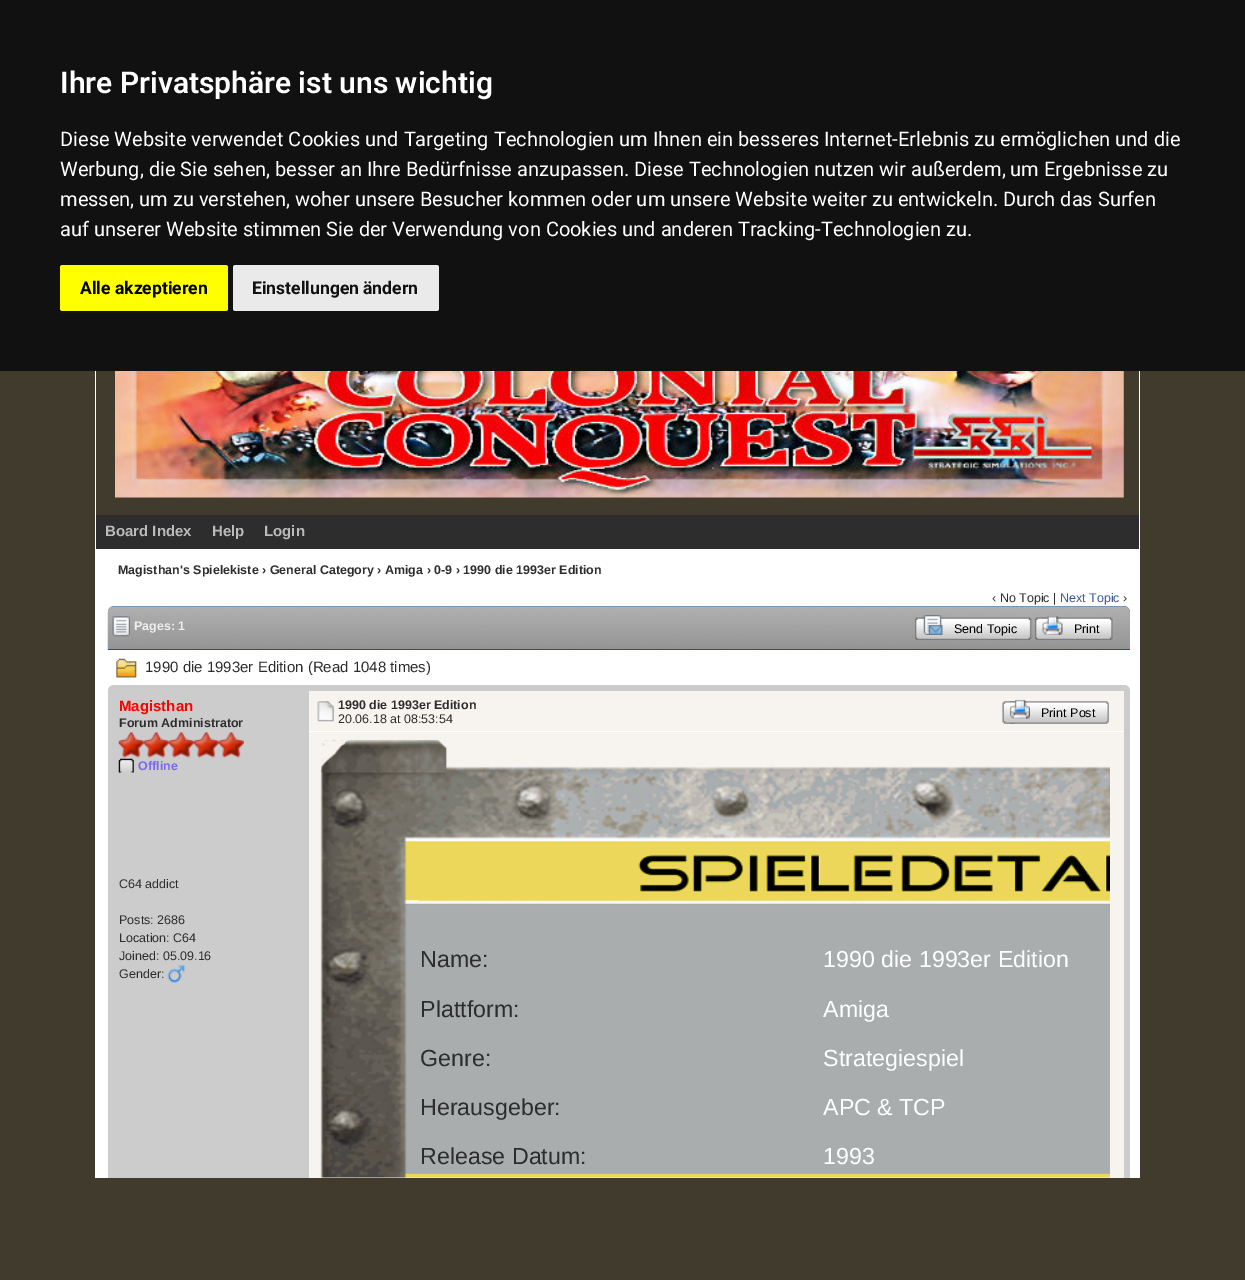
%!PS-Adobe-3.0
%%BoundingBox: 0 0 1245 1280
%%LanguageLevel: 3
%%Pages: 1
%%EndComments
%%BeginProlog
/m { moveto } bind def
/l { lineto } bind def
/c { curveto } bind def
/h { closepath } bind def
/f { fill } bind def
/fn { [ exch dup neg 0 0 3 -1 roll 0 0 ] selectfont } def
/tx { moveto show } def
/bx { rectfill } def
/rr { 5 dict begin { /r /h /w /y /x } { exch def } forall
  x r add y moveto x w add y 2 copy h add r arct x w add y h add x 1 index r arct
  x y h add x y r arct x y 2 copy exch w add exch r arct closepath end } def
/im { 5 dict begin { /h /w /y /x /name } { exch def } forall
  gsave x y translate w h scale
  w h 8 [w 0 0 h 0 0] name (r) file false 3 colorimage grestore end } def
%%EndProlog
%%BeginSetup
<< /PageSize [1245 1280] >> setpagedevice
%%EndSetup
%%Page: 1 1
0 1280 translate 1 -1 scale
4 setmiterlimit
0.251 0.231 0.176 setrgbcolor
0 0 1245 1280 bx
0.067 setgray
0 0 1245 371 bx
/Roboto-SemiBold 30 fn
1 setgray
(Ihre Privatsphäre ist uns wichtig) 60 93 tx
/Roboto-Regular 20 fn
(Diese Website verwendet Cookies und Targeting Technologien um Ihnen ein besseres Internet-Erlebnis zu ermöglichen und die) 60 146 tx
(Werbung, die Sie sehen, besser an Ihre Bedürfnisse anzupassen. Diese Technologien nutzen wir außerdem, um Ergebnisse zu) 60 176 tx
(messen, um zu verstehen, woher unsere Besucher kommen oder um unsere Website weiter zu entwickeln. Durch das Surfen) 60 206 tx
(auf unserer Website stimmen Sie der Verwendung von Cookies und anderen Tracking-Technologien zu.) 60 236 tx
1 1 0 setrgbcolor
60 265 168 46 2.5 rr f
/Roboto-Bold 17.5 fn
0 setgray
(Alle akzeptieren) 80 294 tx
0.918 setgray
233 265 206 46 2.5 rr f
0.067 setgray
(Einstellungen ändern) 252 294 tx
1 setgray
95 371 1045 807 bx
0.251 0.231 0.176 setrgbcolor
96 371 1043 144 bx
(image0.raw) 115 371 1009 127 im
0.176 setgray
96 515 1043 34 bx
/LiberationSans-Bold 15 fn
0.733 setgray
(Board Index) 105 536 tx
(Help) 212 536 tx
(Login) 264 536 tx
/LiberationSans-Bold 12.5 fn
0.176 setgray
(Magisthan's Spielekiste › General Category › Amiga › 0-9 › 1990 die 1993er Edition) 118 574 tx
/LiberationSans-Regular 12.5 fn
(‹ No Topic |) 992 602 tx
0.231 0.349 0.596 setrgbcolor
(Next Topic) 1060 602 tx
0.176 setgray
(›) 1123 602 tx
0.212 0.451 0.702 setrgbcolor
114 606 m 1124 606 l 1127.5 606 1130 608.5 1130 612 c 1130 650 l 108 650 l 108 612 l 108 608.5 110.5 606 114 606 c h f
(image1.raw) 107 606 1023 44 im
0.098 0.325 0.573 setrgbcolor
108 649 1022 1 bx
(image2.raw) 112 616 18 21 im
/LiberationSans-Bold 12.5 fn
0.933 setgray
(Pages: 1) 134 630 tx
(image3.raw) 915 617 11 23 im
(image4.raw) 922 617 110 23 im
(image5.raw) 923 615 20 20 im
/LiberationSans-Regular 12.5 fn
0 setgray
(Send Topic) 954 633 tx
(image6.raw) 1035 617 13 23 im
(image7.raw) 1042 617 71 23 im
(image8.raw) 1042 616 21 19 im
(Print) 1074 633 tx
(image9.raw) 116 658 21 20 im
/LiberationSans-Regular 15 fn
0.176 setgray
(1990 die 1993er Edition \(Read 1048 times\)) 145 672 tx
0.8 setgray
114 685 m 1124 685 l 1127.5 685 1130 687.5 1130 691 c 1130 1178 l 108 1178 l 108 691 l 108 687.5 110.5 685 114 685 c h f
0.969 0.957 0.941 setrgbcolor
309 691 815 487 bx
/LiberationSans-Bold 15 fn
1 0 0 setrgbcolor
(Magisthan) 119 711 tx
/LiberationSans-Bold 12.5 fn
0.176 setgray
(Forum Administrator) 119 727 tx
(image10.raw) 118 732 26 26 im
(image11.raw) 143 732 26 26 im
(image12.raw) 168 732 26 26 im
(image12.raw) 193 732 26 26 im
(image12.raw) 218 732 26 26 im
(image13.raw) 118 758 16 15 im
0.482 0.408 0.933 setrgbcolor
(Offline) 138 770 tx
/LiberationSans-Regular 12.5 fn
0.176 setgray
(C64 addict) 119 888 tx
(Posts: 2686) 119 924 tx
(Location: C64) 119 942 tx
(Joined: 05.09.16) 119 960 tx
(Gender:) 119 978 tx
(image14.raw) 167 965 18 18 im
(image15.raw) 317 701 17 21 im
/LiberationSans-Bold 12.5 fn
(1990 die 1993er Edition) 338 709 tx
/LiberationSans-Regular 12.5 fn
(20.06.18 at 08:53:54) 338 723 tx
1 setgray
309 731 815 1 bx
(image16.raw) 1002 701 13 23 im
(image17.raw) 1010 701 99 23 im
(image18.raw) 1010 699 20 20 im
0 setgray
(Print Post) 1041 717 tx
(image19.raw) 320 739 790 439 im
/LiberationSans-Regular 23.25 fn
0.176 setgray
(Name:) 420 967 tx
1 setgray
(1990 die 1993er Edition) 823 967 tx
0.176 setgray
(Plattform:) 420 1017 tx
1 setgray
(Amiga) 823 1017 tx
0.176 setgray
(Genre:) 420 1066 tx
1 setgray
(Strategiespiel) 823 1066 tx
0.176 setgray
(Herausgeber:) 420 1115 tx
1 setgray
(APC & TCP) 823 1115 tx
0.176 setgray
(Release Datum:) 420 1164 tx
1 setgray
(1993) 823 1164 tx
showpage
%%EOF
